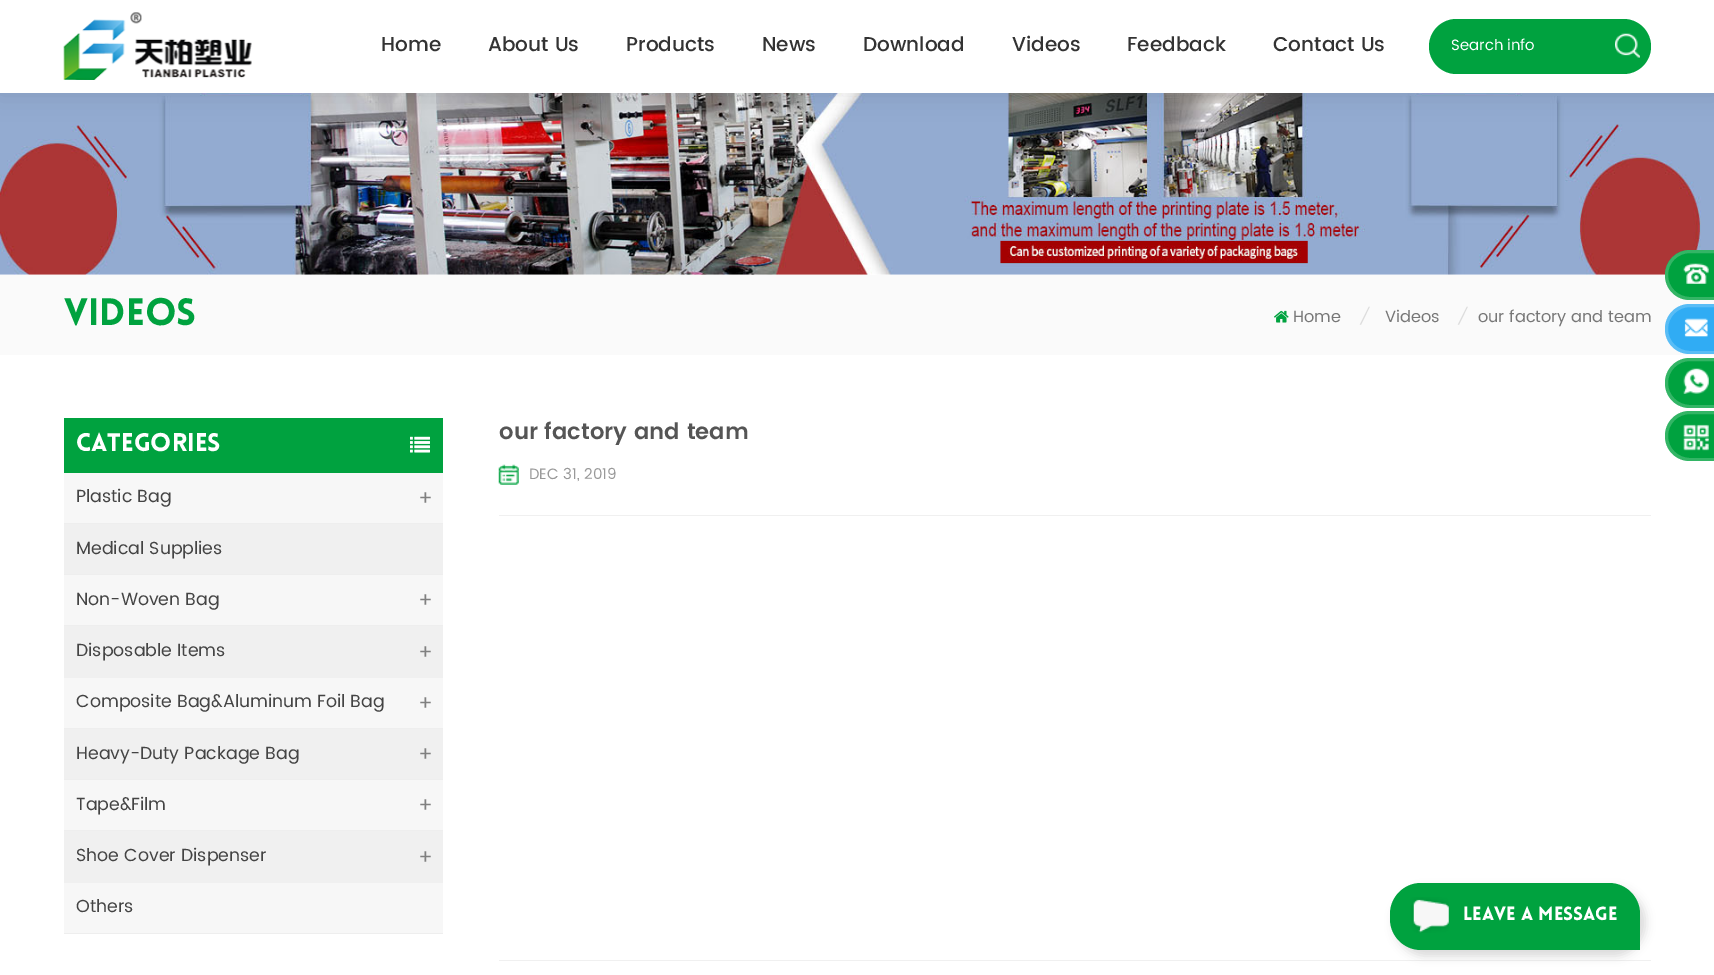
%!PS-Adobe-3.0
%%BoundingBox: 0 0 1714 975
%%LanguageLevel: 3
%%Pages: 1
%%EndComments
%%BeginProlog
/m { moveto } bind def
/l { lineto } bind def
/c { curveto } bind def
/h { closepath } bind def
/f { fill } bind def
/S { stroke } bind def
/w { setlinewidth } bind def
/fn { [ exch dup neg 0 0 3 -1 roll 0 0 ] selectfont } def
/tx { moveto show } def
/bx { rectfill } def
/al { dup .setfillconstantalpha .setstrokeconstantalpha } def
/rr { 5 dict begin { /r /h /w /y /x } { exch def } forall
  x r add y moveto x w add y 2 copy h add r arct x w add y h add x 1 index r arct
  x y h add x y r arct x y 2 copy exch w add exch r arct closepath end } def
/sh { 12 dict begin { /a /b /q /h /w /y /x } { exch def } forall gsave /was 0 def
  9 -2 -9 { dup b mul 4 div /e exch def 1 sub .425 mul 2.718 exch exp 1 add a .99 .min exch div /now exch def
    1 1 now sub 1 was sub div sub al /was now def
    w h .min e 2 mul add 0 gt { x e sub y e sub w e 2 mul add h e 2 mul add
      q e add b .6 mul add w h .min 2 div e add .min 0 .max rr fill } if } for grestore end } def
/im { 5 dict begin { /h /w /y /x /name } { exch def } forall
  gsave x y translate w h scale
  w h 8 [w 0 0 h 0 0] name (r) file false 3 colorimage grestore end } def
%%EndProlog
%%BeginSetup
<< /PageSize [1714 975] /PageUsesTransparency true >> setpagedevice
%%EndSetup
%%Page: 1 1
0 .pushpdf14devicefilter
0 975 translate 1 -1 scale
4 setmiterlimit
1 setgray
0 0 1714 975 bx
(image2.raw) 0 93 1714 182 im
0 setgray
-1 -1 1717 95 0 12.5 0.1 sh
1 setgray
0 0 1714 93 bx
(image0.raw) 63 12 189 68 im
/Poppins-Medium 20 fn
0.2 setgray
(Home) 381 51 tx
(About Us) 488 51 tx
(Products) 626 51 tx
(News) 762 51 tx
(Download) 863 51 tx
(Videos) 1012 51 tx
(Feedback) 1127 51 tx
(Contact Us) 1273 51 tx
0 0.635 0.247 setrgbcolor
1429 19 222 55 27.5 rr f
/Poppins-Regular 15 fn
1 setgray
(Search info) 1451 50 tx
(image1.raw) 1615 33 25 25 im
0.98 setgray
0 275 1714 80 bx
/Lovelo-Black 37.5 fn
0 0.635 0.247 setrgbcolor
(Videos) 64 325 tx
(image3.raw) 1274 310 15 13 im
/Poppins-Regular 16.25 fn
0.467 setgray
(Home) 1293 322 tx
/Poppins-Italic 16.25 fn
0.863 setgray
(/) 1359 322 tx
/Poppins-Regular 16.25 fn
0.467 setgray
(Videos) 1385 322 tx
/Poppins-Italic 16.25 fn
0.863 setgray
(/) 1457 322 tx
/Poppins-Regular 16.25 fn
0.467 setgray
(our factory and team) 1478 322 tx
0 0.635 0.247 setrgbcolor
1690 250 m 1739 250 l 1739 300 l 1690 300 l 1676 300 1665 289 1665 275 c 1665 261 1676 250 1690 250 c h f
(image4.raw) 1683 263 26 21 im
0.2 al
1 setgray
3 w
1690 251.5 m 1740.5 251.5 l 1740.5 298.5 l 1690 298.5 l 1677 298.5 1666.5 288 1666.5 275 c 1666.5 262 1677 251.5 1690 251.5 c h S
1 al
0.188 0.675 0.957 setrgbcolor
1690 304 m 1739 304 l 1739 354 l 1690 354 l 1676 354 1665 343 1665 329 c 1665 315 1676 304 1690 304 c h f
(image5.raw) 1684 318 24 19 im
0.2 al
1 setgray
1690 305.5 m 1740.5 305.5 l 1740.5 352.5 l 1690 352.5 l 1677 352.5 1666.5 342 1666.5 329 c 1666.5 316 1677 305.5 1690 305.5 c h S
1 al
0 0.635 0.247 setrgbcolor
1690 358 m 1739 358 l 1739 408 l 1690 408 l 1676 408 1665 397 1665 383 c 1665 369 1676 358 1690 358 c h f
(image6.raw) 1683 368 26 26 im
0.2 al
1 setgray
1690 359.5 m 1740.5 359.5 l 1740.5 406.5 l 1690 406.5 l 1677 406.5 1666.5 396 1666.5 383 c 1666.5 370 1677 359.5 1690 359.5 c h S
1 al
0 0.635 0.247 setrgbcolor
1690 411 m 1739 411 l 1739 461 l 1690 461 l 1676 461 1665 450 1665 436 c 1665 422 1676 411 1690 411 c h f
(image7.raw) 1683 424 26 27 im
0.2 al
1 setgray
1690 412.5 m 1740.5 412.5 l 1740.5 459.5 l 1690 459.5 l 1677 459.5 1666.5 449 1666.5 436 c 1666.5 423 1677 412.5 1690 412.5 c h S
1 al
0 0.635 0.247 setrgbcolor
64 418 379 55 bx
/Lovelo-Black 25 fn
1 setgray
(CATEGORIES) 76 451 tx
(image8.raw) 410 436 20 17 im
0.969 setgray
64 473 379 50 bx
0.933 setgray
64 523 379 1 bx
/Poppins-Regular 17.5 fn
0.267 setgray
(Plastic Bag) 76 502 tx
/LiberationSerif-Bold 22.5 fn
0.502 setgray
(+) 419 505 tx
0.941 setgray
64 524 379 50 bx
0.933 setgray
64 574 379 1 bx
/Poppins-Regular 17.5 fn
0.267 setgray
(Medical Supplies) 76 554 tx
0.969 setgray
64 575 379 50 bx
0.933 setgray
64 625 379 1 bx
0.267 setgray
(Non-Woven Bag) 76 605 tx
/LiberationSerif-Bold 22.5 fn
0.502 setgray
(+) 419 607 tx
0.941 setgray
64 626 379 52 bx
/Poppins-Regular 17.5 fn
0.267 setgray
(Disposable Items) 76 656 tx
/LiberationSerif-Bold 22.5 fn
0.502 setgray
(+) 419 659 tx
0.969 setgray
64 678 379 50 bx
0.933 setgray
64 728 379 1 bx
/Poppins-Regular 17.5 fn
0.267 setgray
(Composite Bag&Aluminum Foil Bag) 76 707 tx
/LiberationSerif-Bold 22.5 fn
0.502 setgray
(+) 419 710 tx
0.941 setgray
64 729 379 50 bx
0.933 setgray
64 779 379 1 bx
/Poppins-Regular 17.5 fn
0.267 setgray
(Heavy-Duty Package Bag) 76 759 tx
/LiberationSerif-Bold 22.5 fn
0.502 setgray
(+) 419 761 tx
0.969 setgray
64 780 379 50 bx
0.933 setgray
64 830 379 1 bx
/Poppins-Regular 17.5 fn
0.267 setgray
(Tape&Film) 76 810 tx
/LiberationSerif-Bold 22.5 fn
0.502 setgray
(+) 419 812 tx
0.941 setgray
64 831 379 52 bx
/Poppins-Regular 17.5 fn
0.267 setgray
(Shoe Cover Dispenser) 76 861 tx
/LiberationSerif-Bold 22.5 fn
0.502 setgray
(+) 419 864 tx
0.969 setgray
64 883 379 50 bx
0.933 setgray
64 933 379 1 bx
/Poppins-Regular 17.5 fn
0.267 setgray
(Others) 76 912 tx
/Poppins-SemiBold 22.5 fn
0.333 setgray
(our factory and team) 499 439 tx
(image9.raw) 498 464 21 21 im
/Poppins-Regular 15 fn
0.6 setgray
(DEC 31, 2019) 529 479 tx
0.941 setgray
499 515 1152 1 bx
499 960 1152 1 bx
0 setgray
1395 889 250 67 31 5 0.15 sh
0 0.635 0.247 setrgbcolor
1421 883 m 1609 883 l 1626 883 1640 897 1640 914 c 1640 950 l 1421 950 l 1404 950 1390 936 1390 919 c 1390 914 l 1390 897 1404 883 1421 883 c h f
(image10.raw) 1410 897 39 36 im
/Lovelo-Black 18.75 fn
1 setgray
(LEAVE A MESSAGE) 1463 920 tx
.poppdf14devicefilter showpage
%%EOF
